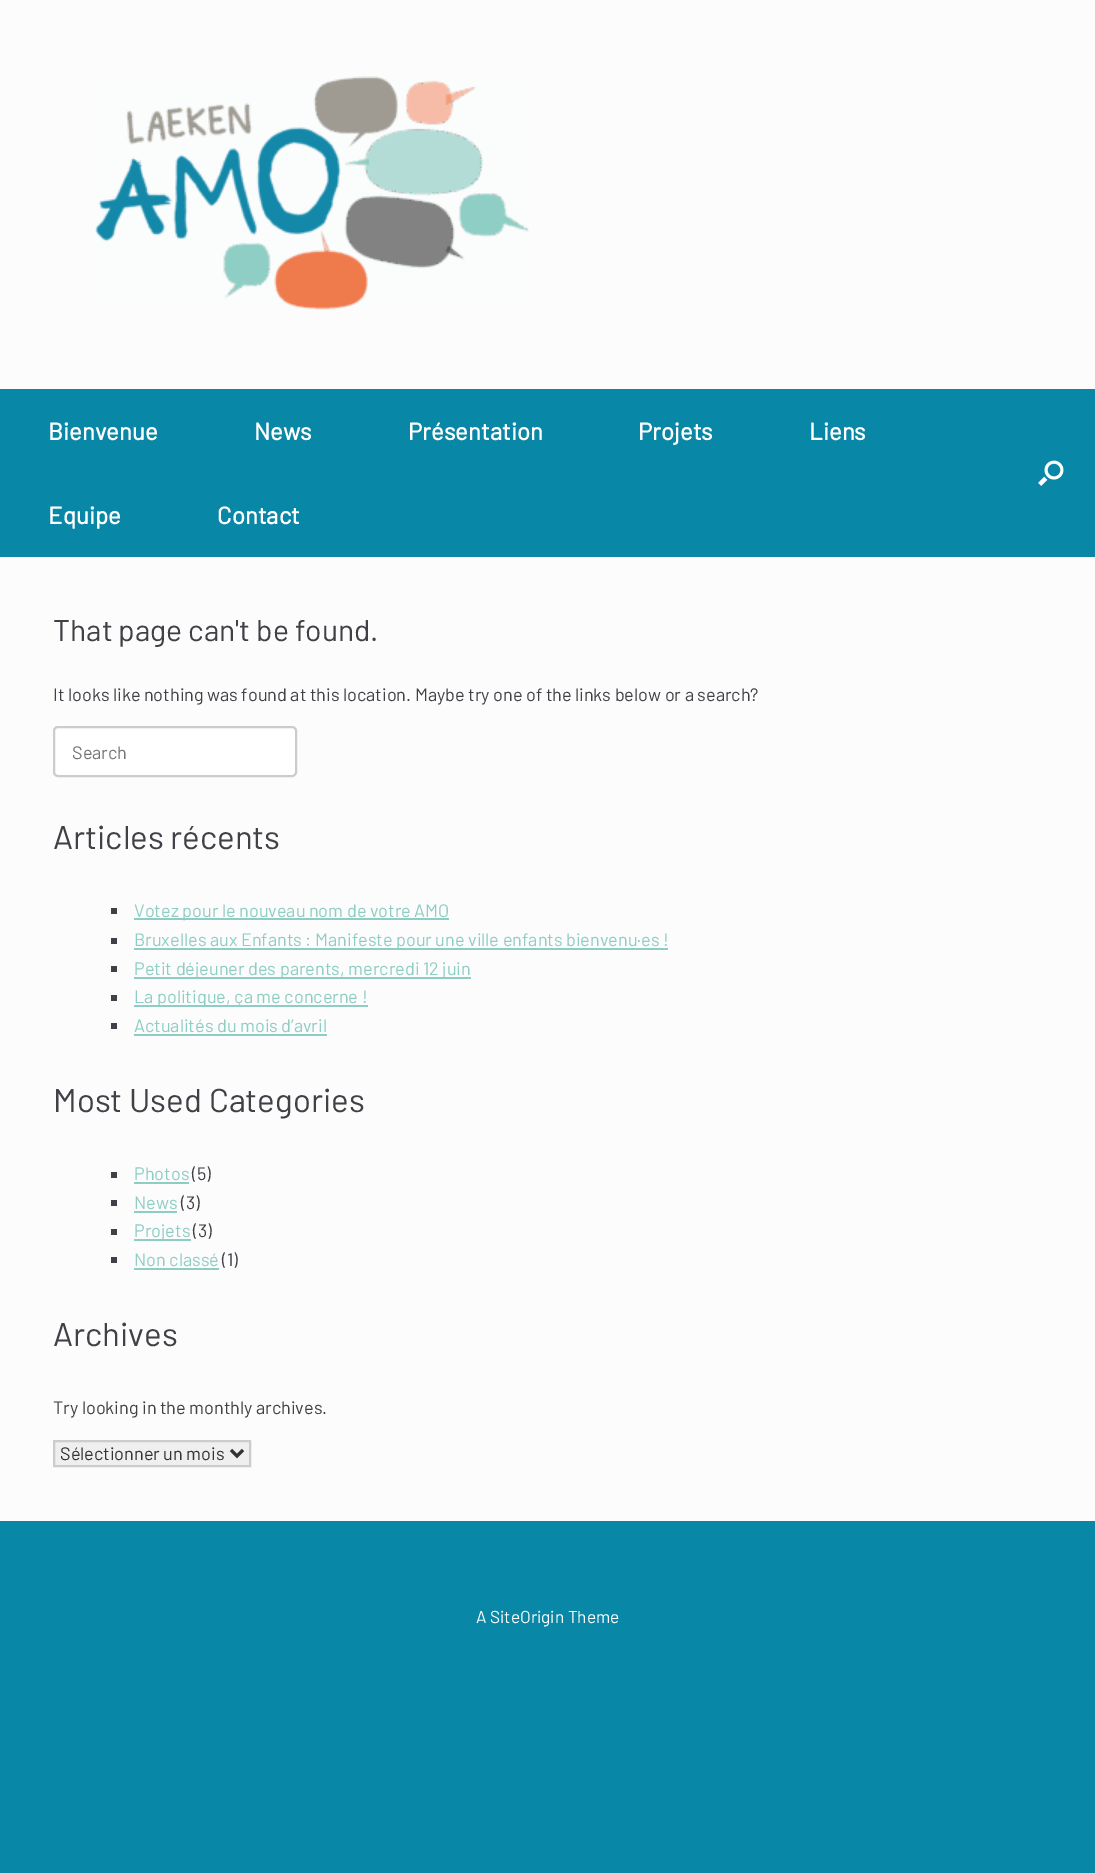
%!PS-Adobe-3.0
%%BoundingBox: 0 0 1095 1873
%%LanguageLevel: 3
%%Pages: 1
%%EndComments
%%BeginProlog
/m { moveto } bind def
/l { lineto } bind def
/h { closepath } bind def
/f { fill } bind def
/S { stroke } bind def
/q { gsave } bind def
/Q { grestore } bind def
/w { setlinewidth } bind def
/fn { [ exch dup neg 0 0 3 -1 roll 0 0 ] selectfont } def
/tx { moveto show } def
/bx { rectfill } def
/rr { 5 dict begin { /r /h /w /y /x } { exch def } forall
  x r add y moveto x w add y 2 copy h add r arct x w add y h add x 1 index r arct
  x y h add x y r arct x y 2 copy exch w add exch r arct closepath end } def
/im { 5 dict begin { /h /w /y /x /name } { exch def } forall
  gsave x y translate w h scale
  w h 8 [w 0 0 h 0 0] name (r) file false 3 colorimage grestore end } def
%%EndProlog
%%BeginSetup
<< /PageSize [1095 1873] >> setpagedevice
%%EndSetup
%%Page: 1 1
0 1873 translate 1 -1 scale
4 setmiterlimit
0.035 0.529 0.655 setrgbcolor
0 0 1095 1873 bx
0.988 setgray
0 0 1095 389 bx
(image0.raw) 95 76 435 234 im
/Barlow-Bold 24 fn
1 setgray
(Bienvenue) 48 440 tx
(News) 254 440 tx
(Présentation) 408 440 tx
(Projets) 638 440 tx
(Liens) 809 440 tx
(Equipe) 48 524 tx
(Contact) 217 524 tx
(image1.raw) 1038 460 26 26 im
0.988 setgray
0 557 1095 964 bx
/Barlow-Regular 30 fn
0.251 0.251 0.275 setrgbcolor
(That page can't be found.) 53 641 tx
/Barlow-Regular 18 fn
(It looks like nothing was found at this location. Maybe try one of the links below or a search?) 53 701 tx
1 setgray
54 727 242 49 4 rr q f Q
0.8 setgray
2 w
S
0.459 setgray
(Search) 72 759 tx
/Barlow-Regular 33 fn
0.251 0.251 0.275 setrgbcolor
(Articles récents) 53 849 tx
111 908 6 6 bx
0.553 0.804 0.765 setrgbcolor
134 918 315 2 bx
/Barlow-Regular 18 fn
(Votez pour le nouveau nom de votre AMO) 134 917 tx
0.251 0.251 0.275 setrgbcolor
111 938 6 6 bx
0.553 0.804 0.765 setrgbcolor
134 948 534 2 bx
(Bruxelles aux Enfants : Manifeste pour une ville enfants bienvenu·es !) 134 946 tx
0.251 0.251 0.275 setrgbcolor
111 966 6 6 bx
0.553 0.804 0.765 setrgbcolor
134 977 337 2 bx
(Petit déjeuner des parents, mercredi 12 juin) 134 975 tx
0.251 0.251 0.275 setrgbcolor
111 995 6 6 bx
0.553 0.804 0.765 setrgbcolor
134 1005 234 2 bx
(La politique, ça me concerne !) 134 1003 tx
0.251 0.251 0.275 setrgbcolor
111 1023 6 6 bx
0.553 0.804 0.765 setrgbcolor
(Actualités du mois d’avril) 134 1032 tx
134 1034 193 2 bx
/Barlow-Regular 33 fn
0.251 0.251 0.275 setrgbcolor
(Most Used Categories) 53 1112 tx
111 1172 6 6 bx
/Barlow-Regular 18 fn
0.553 0.804 0.765 setrgbcolor
(Photos) 134 1180 tx
134 1182 55 2 bx
0.251 0.251 0.275 setrgbcolor
(\(5\)) 192 1180 tx
111 1200 6 6 bx
0.553 0.804 0.765 setrgbcolor
(News) 134 1209 tx
134 1211 43 2 bx
0.251 0.251 0.275 setrgbcolor
(\(3\)) 181 1209 tx
111 1229 6 6 bx
0.553 0.804 0.765 setrgbcolor
134 1239 57 2 bx
(Projets) 134 1237 tx
0.251 0.251 0.275 setrgbcolor
(\(3\)) 193 1237 tx
111 1257 6 6 bx
0.553 0.804 0.765 setrgbcolor
(Non classé) 134 1266 tx
134 1268 85 2 bx
0.251 0.251 0.275 setrgbcolor
(\(1\)) 222 1266 tx
/Barlow-Regular 33 fn
(Archives) 53 1346 tx
/Barlow-Regular 18 fn
(Try looking in the monthly archives.) 53 1414 tx
0.937 setgray
54 1441 m 250 1441 l 250 1466 l 54 1466 l h q f Q
0.8 setgray
S
0.2 setgray
3 w
231 1450 m 237 1456 l 243 1450 l S
(Sélectionner un mois) 60 1460 tx
/Barlow-Regular 17.25 fn
1 setgray
(A SiteOrigin Theme) 476 1623 tx
showpage
%%EOF
